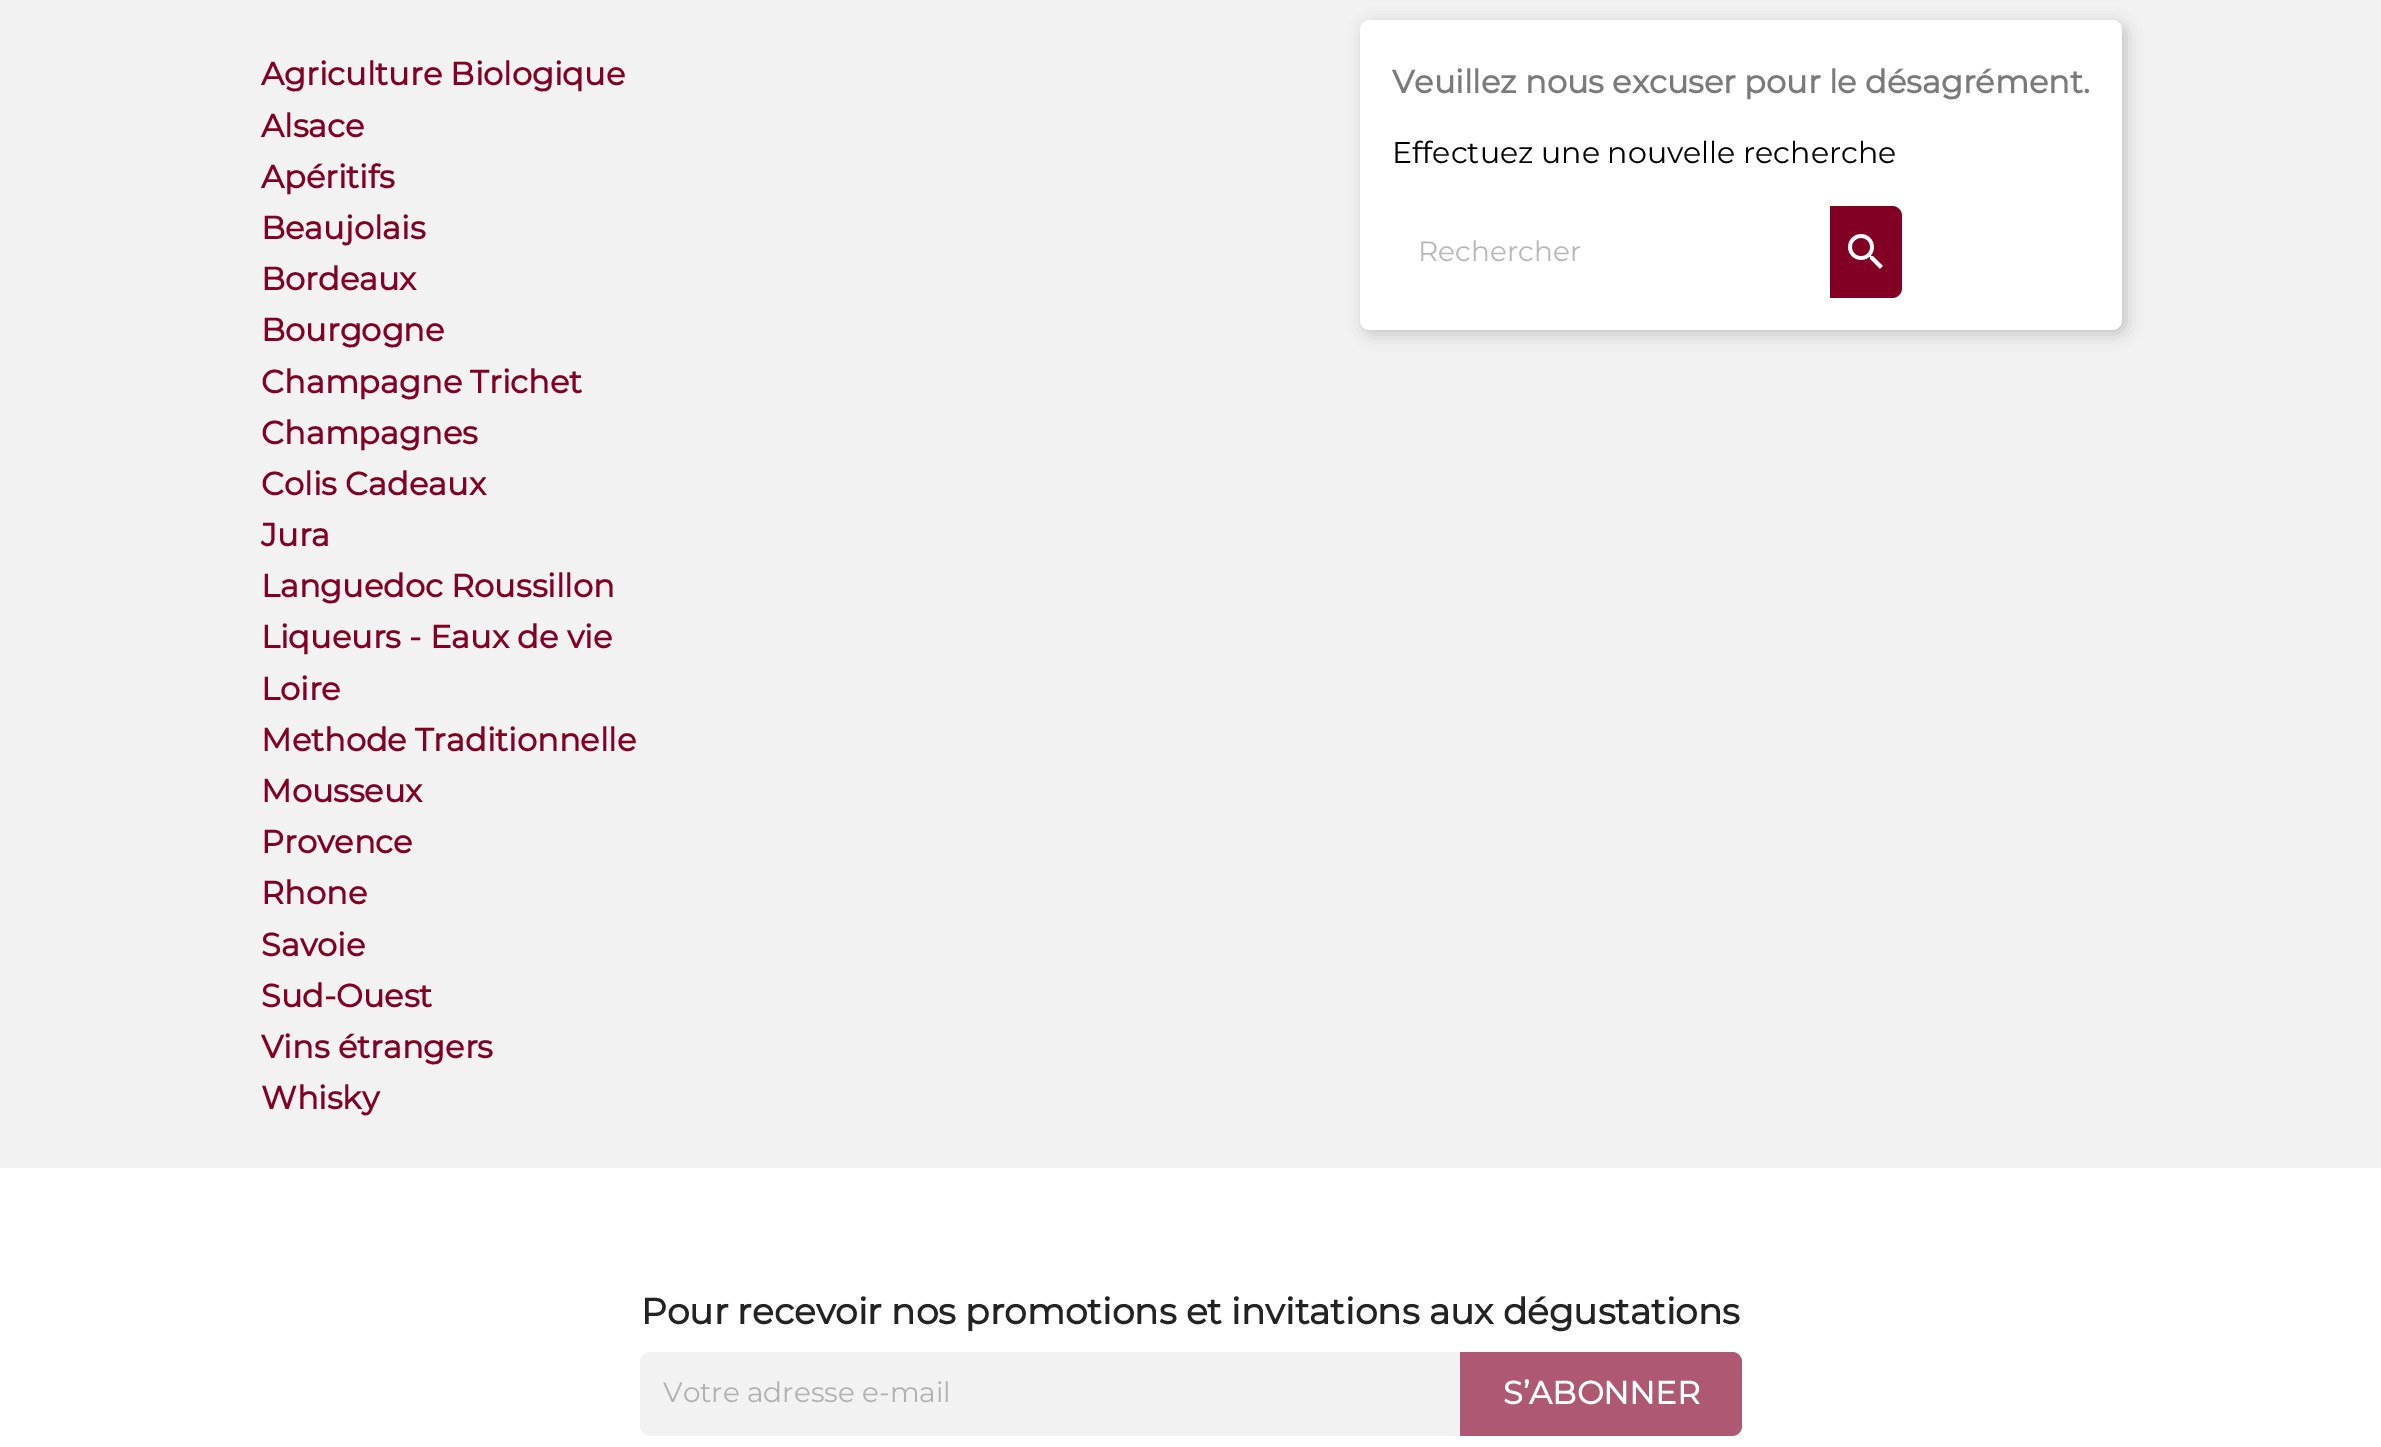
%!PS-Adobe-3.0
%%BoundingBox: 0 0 2381 1447
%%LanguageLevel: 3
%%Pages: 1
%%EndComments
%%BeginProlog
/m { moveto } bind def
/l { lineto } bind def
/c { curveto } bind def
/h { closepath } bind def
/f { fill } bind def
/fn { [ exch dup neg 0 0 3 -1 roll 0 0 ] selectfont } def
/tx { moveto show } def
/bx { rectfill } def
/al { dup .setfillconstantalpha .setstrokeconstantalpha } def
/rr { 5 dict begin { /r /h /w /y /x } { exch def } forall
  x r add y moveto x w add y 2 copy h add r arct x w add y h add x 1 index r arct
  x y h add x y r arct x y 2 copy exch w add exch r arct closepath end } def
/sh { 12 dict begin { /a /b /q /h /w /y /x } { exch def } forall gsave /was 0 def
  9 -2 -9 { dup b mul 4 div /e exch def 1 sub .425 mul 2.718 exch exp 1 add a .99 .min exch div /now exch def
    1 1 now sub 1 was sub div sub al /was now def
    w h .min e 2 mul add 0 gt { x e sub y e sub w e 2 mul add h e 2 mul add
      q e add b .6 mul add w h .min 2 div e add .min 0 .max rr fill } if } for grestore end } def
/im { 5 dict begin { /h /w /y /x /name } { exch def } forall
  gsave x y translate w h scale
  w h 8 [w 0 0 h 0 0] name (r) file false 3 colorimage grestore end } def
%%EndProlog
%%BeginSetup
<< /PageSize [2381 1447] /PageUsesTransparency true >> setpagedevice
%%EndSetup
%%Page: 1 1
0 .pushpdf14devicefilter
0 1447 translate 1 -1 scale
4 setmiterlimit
1 setgray
0 0 2381 1447 bx
0.949 setgray
0 0 2381 1168 bx
/Montserrat-Bold 32 fn
0.51 0 0.141 setrgbcolor
(Agriculture Biologique) 261 85 tx
(Alsace) 261 137 tx
(Apéritifs) 261 188 tx
(Beaujolais) 261 239 tx
(Bordeaux) 261 290 tx
(Bourgogne) 261 341 tx
(Champagne Trichet) 261 393 tx
(Champagnes) 261 444 tx
(Colis Cadeaux) 261 495 tx
(Jura) 261 546 tx
(Languedoc Roussillon) 261 597 tx
(Liqueurs - Eaux de vie) 261 648 tx
(Loire) 261 700 tx
(Methode Traditionnelle) 261 751 tx
(Mousseux) 261 802 tx
(Provence) 261 853 tx
(Rhone) 261 904 tx
(Savoie) 261 956 tx
(Sud-Ouest) 261 1007 tx
(Vins étrangers) 261 1058 tx
(Whisky) 261 1109 tx
0 setgray
1364 24 762 310 10 8 0.2 sh
1 setgray
1360 20 762 310 10 rr f
0.478 setgray
(Veuillez nous excuser pour le désagrément.) 1392 93 tx
/Montserrat-Regular 30 fn
0 setgray
(Effectuez une nouvelle recherche) 1392 163 tx
/Montserrat-Regular 28 fn
0.718 setgray
(Rechercher) 1418 261 tx
0.51 0 0.141 setrgbcolor
1830 206 m 1892 206 l 1897.5 206 1902 210.5 1902 216 c 1902 288 l 1902 293.5 1897.5 298 1892 298 c 1830 298 l h f
(image0.raw) 1848 234 35 35 im
/Montserrat-Bold 36 fn
0.137 setgray
(Pour recevoir nos promotions et invitations aux dégustations) 641 1324 tx
0.949 setgray
650 1352 m 1460 1352 l 1460 1436 l 650 1436 l 644.5 1436 640 1431.5 640 1426 c 640 1362 l 640 1356.5 644.5 1352 650 1352 c h f
/Montserrat-Regular 28 fn
0.694 setgray
(Votre adresse e-mail) 663 1402 tx
0.682 0.349 0.443 setrgbcolor
1460 1352 m 1732 1352 l 1737.5 1352 1742 1356.5 1742 1362 c 1742 1426 l 1742 1431.5 1737.5 1436 1732 1436 c 1460 1436 l h f
/Montserrat-Bold 32 fn
1 setgray
(S’ABONNER) 1503 1404 tx
.poppdf14devicefilter showpage
%%EOF
